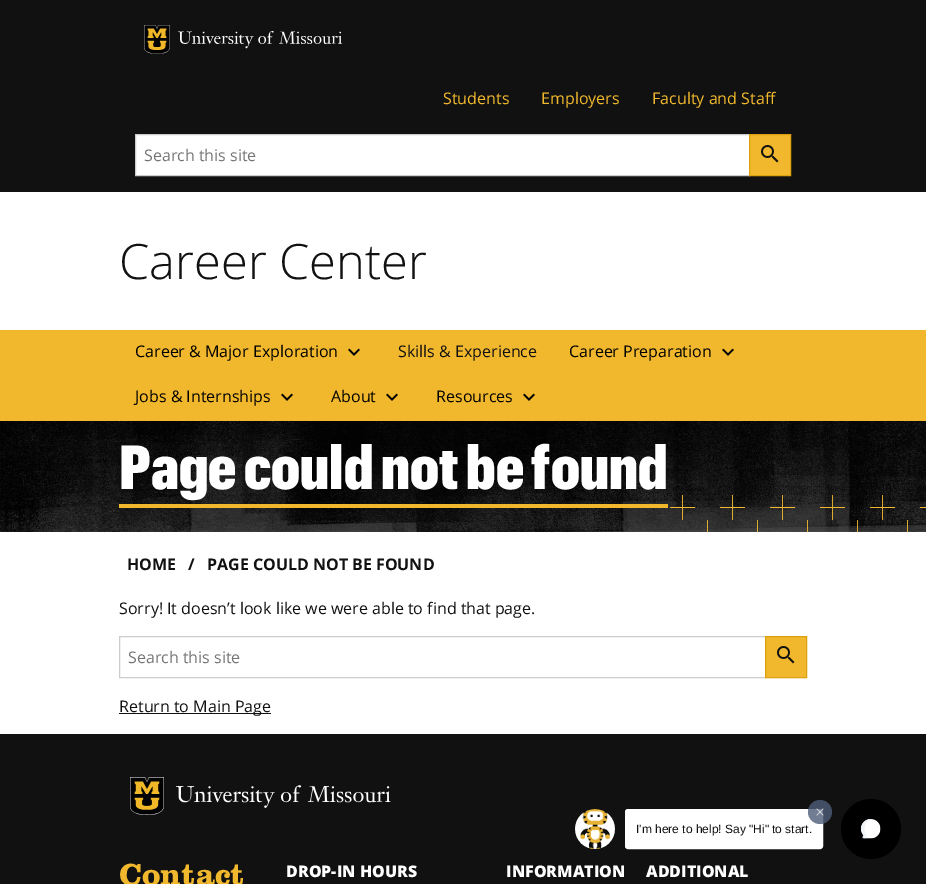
%!PS-Adobe-3.0
%%BoundingBox: 0 0 926 884
%%LanguageLevel: 3
%%Pages: 1
%%EndComments
%%BeginProlog
/m { moveto } bind def
/l { lineto } bind def
/h { closepath } bind def
/f { fill } bind def
/S { stroke } bind def
/q { gsave } bind def
/Q { grestore } bind def
/fn { [ exch dup neg 0 0 3 -1 roll 0 0 ] selectfont } def
/tx { moveto show } def
/bx { rectfill } def
/al { dup .setfillconstantalpha .setstrokeconstantalpha } def
/ci { newpath 0 360 arc closepath } def
/rr { 5 dict begin { /r /h /w /y /x } { exch def } forall
  x r add y moveto x w add y 2 copy h add r arct x w add y h add x 1 index r arct
  x y h add x y r arct x y 2 copy exch w add exch r arct closepath end } def
/im { 5 dict begin { /h /w /y /x /name } { exch def } forall
  gsave x y translate w h scale
  w h 8 [w 0 0 h 0 0] name (r) file false 3 colorimage grestore end } def
%%EndProlog
%%BeginSetup
<< /PageSize [926 884] /PageUsesTransparency true >> setpagedevice
%%EndSetup
%%Page: 1 1
0 .pushpdf14devicefilter
0 884 translate 1 -1 scale
4 setmiterlimit
1 setgray
0 0 926 884 bx
0.067 setgray
0 0 926 192 bx
(image0.raw) 144 25 26 29 im
(image1.raw) 178 31 165 18 im
/OpenSans-Regular 16 fn
0.945 0.722 0.176 setrgbcolor
(Students) 443 104 tx
(Employers) 541 104 tx
(Faculty and Staff) 652 104 tx
1 setgray
135.5 134.5 m 749.5 134.5 l 749.5 175.5 l 135.5 175.5 l h q f Q
0.8 setgray
S
0.459 setgray
(Search this site) 144 161 tx
0.945 0.722 0.176 setrgbcolor
749.5 134.5 m 790.5 134.5 l 790.5 175.5 l 749.5 175.5 l h q f Q
0.863 0.631 0.059 setrgbcolor
S
(image2.raw) 761 145 18 18 im
/OpenSans-Light 48.75 fn
0.067 setgray
(Career Center) 119 279 tx
0.945 0.722 0.176 setrgbcolor
0 330 926 91 bx
/OpenSans-Regular 16 fn
0 setgray
(Career & Major Exploration) 135 357 tx
(image3.raw) 348 348 12 8 im
0.067 setgray
(Skills & Experience) 398 357 tx
0 setgray
(Career Preparation) 569 357 tx
(image3.raw) 722 348 12 8 im
(Jobs & Internships) 135 402 tx
(image3.raw) 281 393 12 8 im
(About) 331 402 tx
(image3.raw) 386 393 12 8 im
(Resources) 436 402 tx
(image3.raw) 523 393 12 8 im
0.067 setgray
0 421 926 111 bx
(image4.raw) 0 421 926 111 im
0.945 0.722 0.176 setrgbcolor
119 504 549 4 bx
/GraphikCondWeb-ExtraBold 61 fn
1 setgray
(Page could not be found) 119 489 tx
(image5.raw) 670 495 256 37 im
/OpenSans-Bold 16 fn
0.067 setgray
(HOME) 127 570 tx
(/) 188 570 tx
(PAGE COULD NOT BE FOUND) 207 570 tx
/OpenSans-Regular 16 fn
(Sorry! It doesn’t look like we were able to find that page.) 119 614 tx
0.8 setgray
119.5 636.5 646 41 rectstroke
0.459 setgray
(Search this site) 128 663 tx
0.945 0.722 0.176 setrgbcolor
765.5 636.5 m 806.5 636.5 l 806.5 677.5 l 765.5 677.5 l h q f Q
0.863 0.631 0.059 setrgbcolor
S
(image2.raw) 777 646 18 18 im
0.067 setgray
119 713 152 1 bx
(Return to Main Page) 119 712 tx
0 734 926 150 bx
(image6.raw) 130 777 34 38 im
(image7.raw) 176 785 215 23 im
/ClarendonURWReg-Regular 31.25 fn
0.945 0.722 0.176 setrgbcolor
(Contact) 119 885 tx
/OpenSans-ExtraBold 16 fn
1 setgray
(DROP-IN HOURS) 286 877 tx
(INFORMATION) 506 877 tx
(ADDITIONAL) 646 877 tx
(image8.raw) 575 809 40 40 im
625.5 809.5 197 39 2.5 rr q f Q
S
0.8 al
0.306 0.365 0.467 setrgbcolor
820 812 12 ci f
1 al
(image9.raw) 816 808 8 8 im
/LiberationSans-Regular 12 fn
0.067 setgray
(I'm here to help! Say "Hi" to start.) 636 833 tx
0 setgray
871 829 30 ci f
(image10.raw) 861 819 20 20 im
.poppdf14devicefilter showpage
%%EOF
